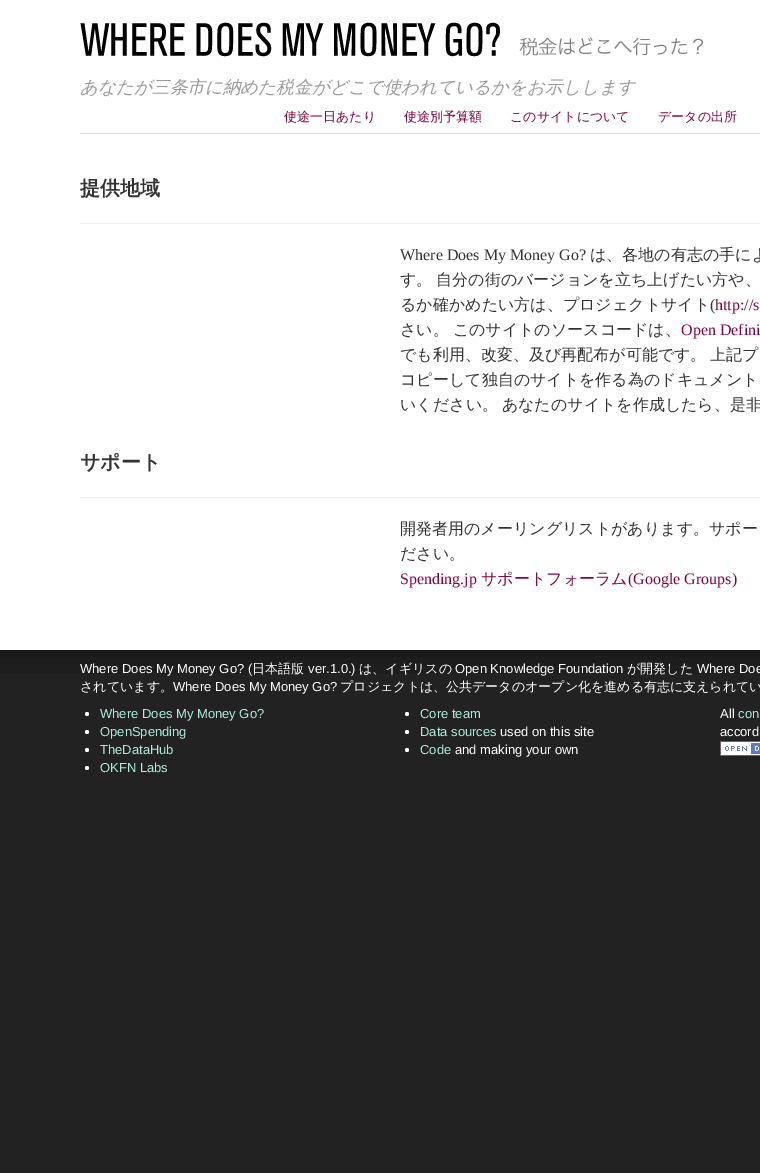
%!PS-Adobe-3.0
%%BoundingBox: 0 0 760 1173
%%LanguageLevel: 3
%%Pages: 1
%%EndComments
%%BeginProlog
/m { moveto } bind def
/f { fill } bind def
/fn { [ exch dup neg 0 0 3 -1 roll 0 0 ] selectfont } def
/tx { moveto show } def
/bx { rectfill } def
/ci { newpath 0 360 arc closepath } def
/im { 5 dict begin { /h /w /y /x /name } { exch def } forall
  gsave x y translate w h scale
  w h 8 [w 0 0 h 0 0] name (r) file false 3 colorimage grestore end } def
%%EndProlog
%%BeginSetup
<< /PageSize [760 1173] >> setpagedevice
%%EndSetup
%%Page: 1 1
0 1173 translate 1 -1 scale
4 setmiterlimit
0.133 setgray
0 0 760 1173 bx
1 setgray
0 0 760 650 bx
(image0.raw) 80 22 623 35 im
/WenQuanYiZenHei-MediumItalic 17.6 fn
0.6 setgray
(あなたが三条市に納めた税金がどこで使われているかをお示しします) 80 93 tx
0.867 setgray
80 133 680 1 bx
/WenQuanYiZenHei-Medium 13 fn
0.514 0.008 0.259 setrgbcolor
(使途一日あたり) 284 121 tx
(使途別予算額) 404 121 tx
(このサイトについて) 510 121 tx
(データの出所) 658 121 tx
0.933 setgray
80 223 680 1 bx
/WenQuanYiZenHei-Bold 20 fn
0.2 setgray
(提供地域) 80 195 tx
/LiberationSerif-Regular 16 fn
(Where Does My Money Go?) 400 260 tx
/WenQuanYiZenHei-Medium 16 fn
(は、各地の有志の手によ) 590 260 tx
400 285 m -1 0 32 (す。 自分の街のバージョンを立ち上げたい方や、) widthshow
(るか確かめたい方は、プロジェクトサイト) 400 310 tx
/LiberationSerif-Regular 16 fn
(\() 710 310 tx
0.514 0.008 0.259 setrgbcolor
(http://s) 715 310 tx
/WenQuanYiZenHei-Medium 16 fn
0.2 setgray
400 335 m -1 0 32 (さい。 このサイトのソースコードは、) widthshow
/LiberationSerif-Regular 16 fn
0.514 0.008 0.259 setrgbcolor
(Open Defini) 681 335 tx
/WenQuanYiZenHei-Medium 16 fn
0.2 setgray
400 360 m -1 0 32 (でも利用、改変、及び再配布が可能です。 上記プ) widthshow
(コピーして独自のサイトを作る為のドキュメント) 400 385 tx
400 410 m -1 0 32 (いください。 あなたのサイトを作成したら、是非) widthshow
0.933 setgray
80 497 680 1 bx
/WenQuanYiZenHei-Bold 20 fn
0.2 setgray
(サポート) 80 469 tx
/WenQuanYiZenHei-Medium 16 fn
(開発者用のメーリングリストがあります。サポー) 400 534 tx
(ださい。) 400 559 tx
/LiberationSerif-Regular 16 fn
0.514 0.008 0.259 setrgbcolor
(Spending.jp) 400 584 tx
/WenQuanYiZenHei-Medium 16 fn
(サポートフォーラム) 481 584 tx
/LiberationSerif-Regular 16 fn
(\(Google Groups\)) 628 584 tx
(image1.raw) 0 650 760 24 im
/LiberationSans-Regular 13 fn
1 setgray
(Where Does My Money Go? \() 80 673 tx
/WenQuanYiZenHei-Medium 13 fn
(日本語版) 252 673 tx
/LiberationSans-Regular 13 fn
(ver.1.0.\)) 308 673 tx
/WenQuanYiZenHei-Medium 13 fn
(は、イギリスの) 359 673 tx
/LiberationSans-Regular 13 fn
(Open Knowledge Foundation) 455 673 tx
/WenQuanYiZenHei-Medium 13 fn
(が開発した) 627 673 tx
/LiberationSans-Regular 13 fn
(Where Doe) 697 673 tx
/WenQuanYiZenHei-Medium 13 fn
(されています。) 80 691 tx
/LiberationSans-Regular 13 fn
(Where Does My Money Go?) 173 691 tx
/WenQuanYiZenHei-Medium 13 fn
(プロジェクトは、公共データのオープン化を進める有志に支えられてい) 340 691 tx
87 714 2 ci f
/LiberationSans-Regular 13 fn
0.682 0.922 0.875 setrgbcolor
(Where Does My Money Go?) 100 718 tx
1 setgray
87 732 2 ci f
0.682 0.922 0.875 setrgbcolor
(OpenSpending) 100 736 tx
1 setgray
87 750 2 ci f
0.682 0.922 0.875 setrgbcolor
(TheDataHub) 100 754 tx
1 setgray
87 768 2 ci f
0.682 0.922 0.875 setrgbcolor
(OKFN Labs) 100 772 tx
1 setgray
407 714 2 ci f
0.682 0.922 0.875 setrgbcolor
(Core team) 420 718 tx
1 setgray
407 732 2 ci f
0.682 0.922 0.875 setrgbcolor
(Data sources) 420 736 tx
1 setgray
(used on this site) 500 736 tx
407 750 2 ci f
0.682 0.922 0.875 setrgbcolor
(Code) 420 754 tx
1 setgray
(and making your own) 455 754 tx
(All) 720 718 tx
0.682 0.922 0.875 setrgbcolor
(con) 738 718 tx
1 setgray
(accord) 720 736 tx
(image2.raw) 720 741 40 15 im
showpage
%%EOF
